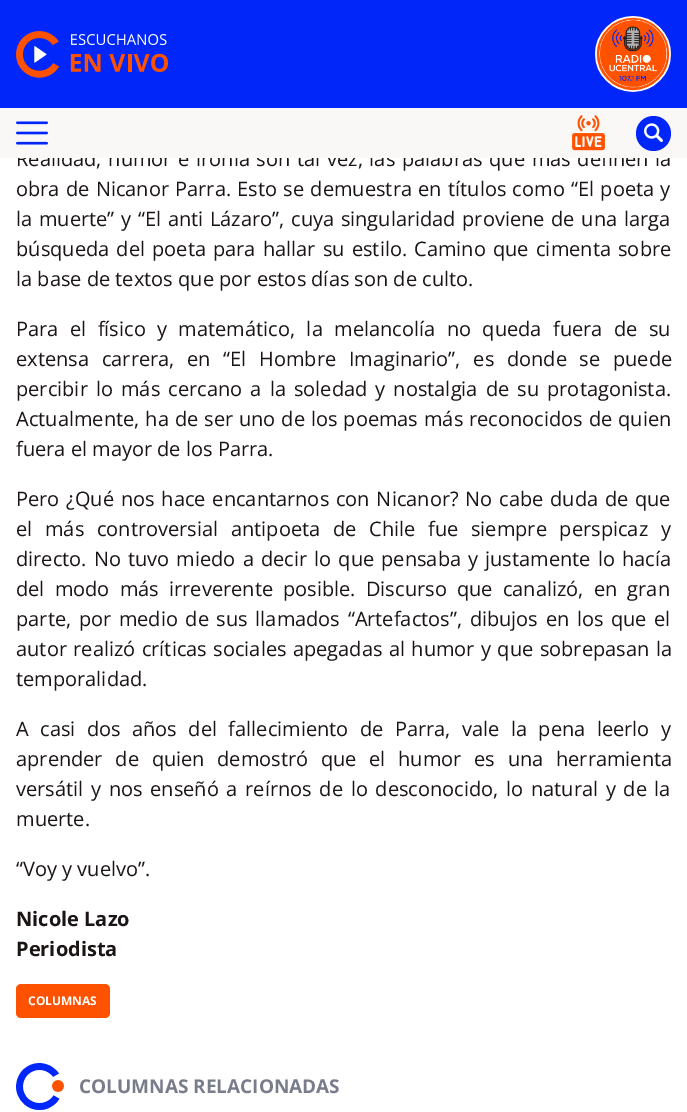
%!PS-Adobe-3.0
%%BoundingBox: 0 0 687 1112
%%LanguageLevel: 3
%%Pages: 1
%%EndComments
%%BeginProlog
/m { moveto } bind def
/f { fill } bind def
/fn { [ exch dup neg 0 0 3 -1 roll 0 0 ] selectfont } def
/tx { moveto show } def
/bx { rectfill } def
/ci { newpath 0 360 arc closepath } def
/rr { 5 dict begin { /r /h /w /y /x } { exch def } forall
  x r add y moveto x w add y 2 copy h add r arct x w add y h add x 1 index r arct
  x y h add x y r arct x y 2 copy exch w add exch r arct closepath end } def
/im { 5 dict begin { /h /w /y /x /name } { exch def } forall
  gsave x y translate w h scale
  w h 8 [w 0 0 h 0 0] name (r) file false 3 colorimage grestore end } def
%%EndProlog
%%BeginSetup
<< /PageSize [687 1112] >> setpagedevice
%%EndSetup
%%Page: 1 1
0 1112 translate 1 -1 scale
4 setmiterlimit
1 setgray
0 0 687 1112 bx
0 0.149 0.98 setrgbcolor
0 0 687 108 bx
(image0.raw) 16 31 152 47 im
(image1.raw) 595 16 76 76 im
/OpenSans-Regular 20 fn
0.102 0.078 0.078 setrgbcolor
16 166 m 1.5 0 32 (Realidad, humor e ironía son tal vez, las palabras que más definen la) widthshow
0.98 0.969 0.969 setrgbcolor
0 108 687 50 bx
(image2.raw) 16 121 32 24 im
(image3.raw) 572 115 33 36 im
0 0.149 0.98 setrgbcolor
653.5 133.5 17.5 ci f
(image4.raw) 644 123 19 19 im
0.102 0.078 0.078 setrgbcolor
16 196 m 1.1 0 32 (obra de Nicanor Parra. Esto se demuestra en títulos como “El poeta y) widthshow
16 226 m 1.5 0 32 (la muerte” y “El anti Lázaro”, cuya singularidad proviene de una larga) widthshow
16 256 m 2 0 32 (búsqueda del poeta para hallar su estilo. Camino que cimenta sobre) widthshow
(la base de textos que por estos días son de culto.) 16 286 tx
16 336 m 6.25 0 32 (Para el físico y matemático, la melancolía no queda fuera de su) widthshow
16 366 m 7.5 0 32 (extensa carrera, en “El Hombre Imaginario”, es donde se puede) widthshow
16 396 m 2.9 0 32 (percibir lo más cercano a la soledad y nostalgia de su protagonista.) widthshow
16 426 m 0.75 0 32 (Actualmente, ha de ser uno de los poemas más reconocidos de quien) widthshow
(fuera el mayor de los Parra.) 16 456 tx
16 506 m 1.6 0 32 (Pero ¿Qué nos hace encantarnos con Nicanor? No cabe duda de que) widthshow
16 536 m 7.5 0 32 (el más controversial antipoeta de Chile fue siempre perspicaz y) widthshow
16 566 m 1.9 0 32 (directo. No tuvo miedo a decir lo que pensaba y justamente lo hacía) widthshow
16 596 m 5 0 32 (del modo más irreverente posible. Discurso que canalizó, en gran) widthshow
16 626 m 2.4 0 32 (parte, por medio de sus llamados “Artefactos”, dibujos en los que el) widthshow
16 656 m 1.25 0 32 (autor realizó críticas sociales apegadas al humor y que sobrepasan la) widthshow
(temporalidad.) 16 686 tx
16 736 m 6.25 0 32 (A casi dos años del fallecimiento de Parra, vale la pena leerlo y) widthshow
16 766 m 7.5 0 32 (aprender de quien demostró que el humor es una herramienta) widthshow
16 796 m 2.5 0 32 (versátil y nos enseñó a reírnos de lo desconocido, lo natural y de la) widthshow
(muerte.) 16 826 tx
(“Voy y vuelvo”.) 16 876 tx
/OpenSans-Bold 20 fn
(Nicole Lazo) 16 926 tx
(Periodista) 16 956 tx
1 0.322 0 setrgbcolor
16 984 94 34 5 rr f
/OpenSans-Bold 12 fn
1 setgray
(COLUMNAS) 28 1005 tx
(image5.raw) 16 1063 48 47 im
/OpenSans-Bold 19 fn
0.475 0.486 0.545 setrgbcolor
(COLUMNAS RELACIONADAS) 79 1093 tx
showpage
%%EOF
